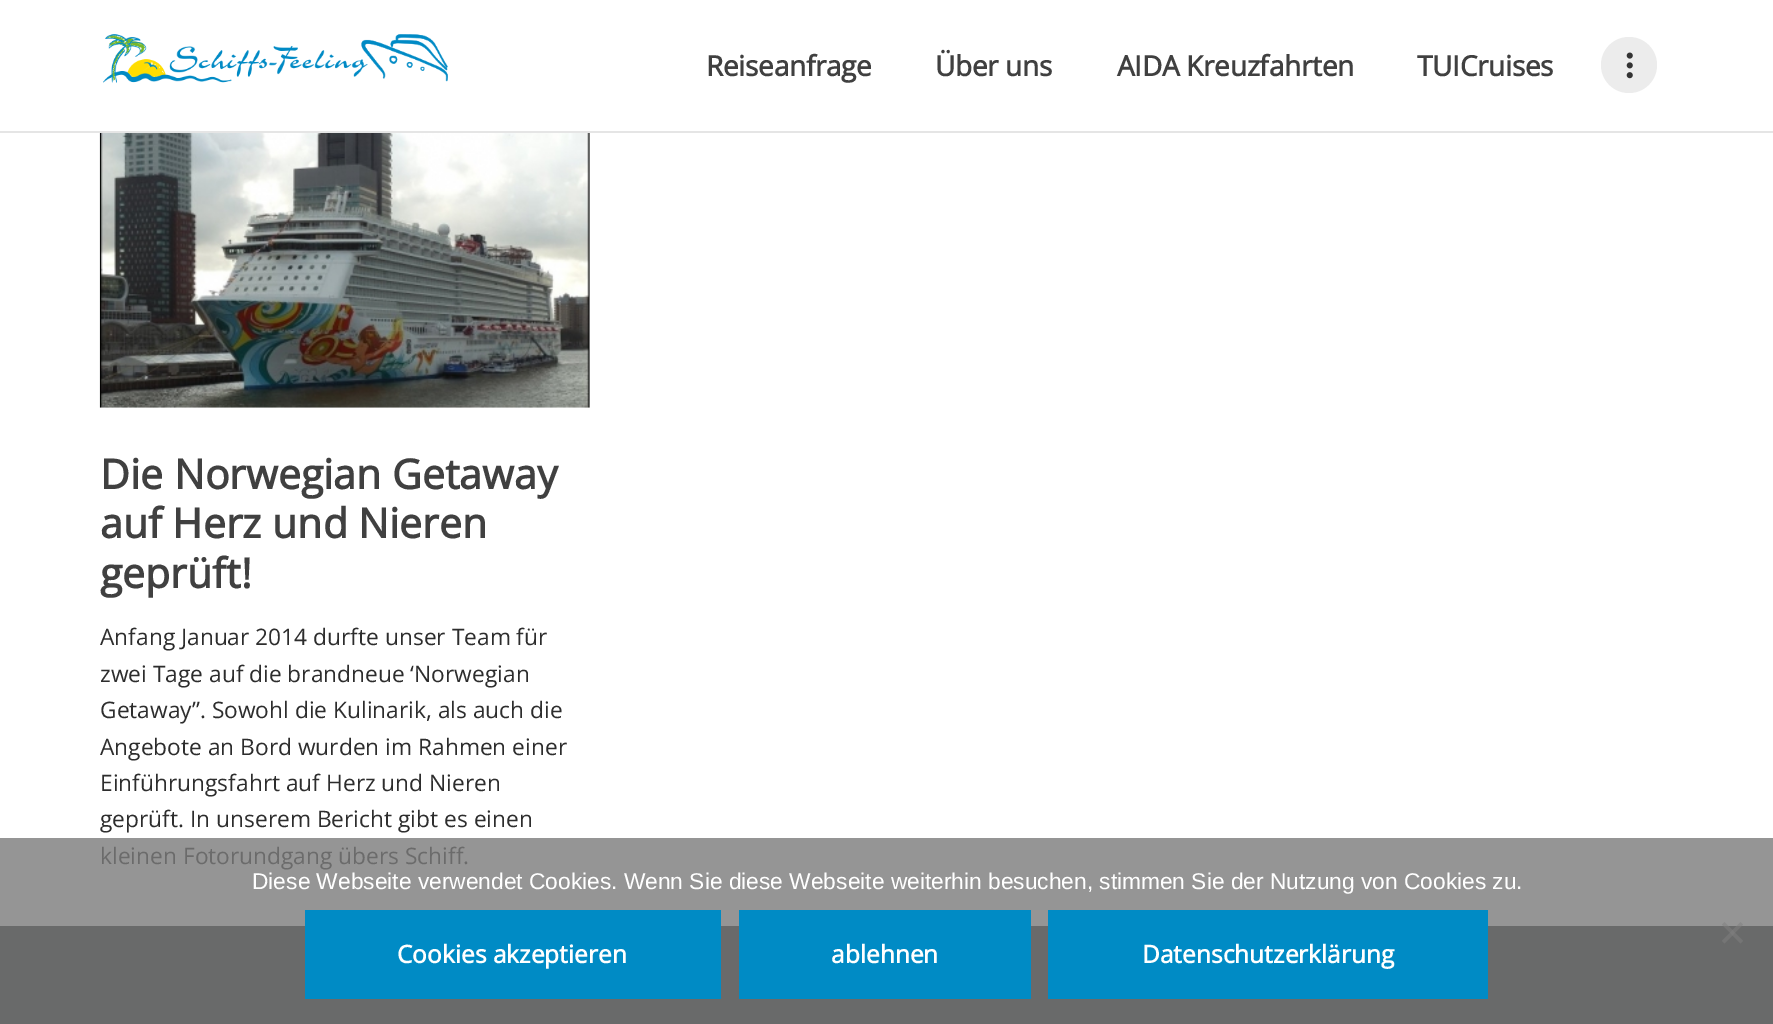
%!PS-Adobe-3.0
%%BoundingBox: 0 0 1773 1024
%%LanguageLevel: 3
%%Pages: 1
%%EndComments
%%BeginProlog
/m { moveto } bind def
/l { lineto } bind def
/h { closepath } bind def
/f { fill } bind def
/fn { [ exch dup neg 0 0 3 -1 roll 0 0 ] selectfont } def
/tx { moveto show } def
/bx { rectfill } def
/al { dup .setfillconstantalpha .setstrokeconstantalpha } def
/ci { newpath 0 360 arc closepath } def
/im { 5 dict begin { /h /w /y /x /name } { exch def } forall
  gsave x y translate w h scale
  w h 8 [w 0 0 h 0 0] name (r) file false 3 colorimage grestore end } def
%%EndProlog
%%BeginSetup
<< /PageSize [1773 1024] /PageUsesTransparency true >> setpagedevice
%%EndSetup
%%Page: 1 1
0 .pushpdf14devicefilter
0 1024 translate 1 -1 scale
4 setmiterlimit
1 setgray
0 0 1773 1024 bx
0.584 setgray
0 838 1773 88 bx
0.898 setgray
0 131 1773 2 bx
(image0.raw) 103 34 345 49 im
/OpenSans-Bold 28 fn
0.251 setgray
706 76 m -0.3 0 (Reiseanfrage) ashow
935 76 m -0.3 0 (Über uns) ashow
1117 76 m -0.3 0 (AIDA Kreuzfahrten) ashow
1417 76 m -0.3 0 (TUICruises) ashow
0.925 setgray
1629 65 28 ci f
(image1.raw) 1626 52 7 27 im
(image2.raw) 99 133 491 275 im
/OpenSans-Bold 41 fn
0.251 setgray
(Die Norwegian Getaway) 100 489 tx
(auf Herz und Nieren) 100 538 tx
(geprüft!) 100 588 tx
/OpenSans-Regular 22.75 fn
0.176 setgray
(Anfang Januar 2014 durfte unser Team für) 100 645 tx
(zwei Tage auf die brandneue ‘Norwegian) 100 682 tx
(Getaway”. Sowohl die Kulinarik, als auch die) 100 718 tx
(Angebote an Bord wurden im Rahmen einer) 100 755 tx
(Einführungsfahrt auf Herz und Nieren) 100 791 tx
(geprüft. In unserem Bericht gibt es einen) 100 827 tx
0.42 setgray
(kleinen Fotorundgang übers Schiff.) 100 864 tx
0.412 0.416 0.416 setrgbcolor
0 926 1773 98 bx
/LiberationSans-Regular 22.75 fn
1 setgray
(Diese Webseite verwendet Cookies. Wenn Sie diese Webseite weiterhin besuchen, stimmen Sie der Nutzung von Cookies zu.) 252 889 tx
0.5 al
0.502 setgray
1740.5 922 m 1743 924.5 l 1724.5 943.5 l 1722 941 l h f
1722 924.5 m 1724.5 922 l 1743 941 l 1740.5 943.5 l h f
1 al
0 0.545 0.773 setrgbcolor
305 910 416 89 bx
/OpenSans-Bold 24.5 fn
1 setgray
(Cookies akzeptieren) 397 963 tx
0 0.545 0.773 setrgbcolor
739 910 292 89 bx
1 setgray
(ablehnen) 831 963 tx
0 0.545 0.773 setrgbcolor
1048 910 440 89 bx
1 setgray
(Datenschutzerklärung) 1142 963 tx
.poppdf14devicefilter showpage
%%EOF
